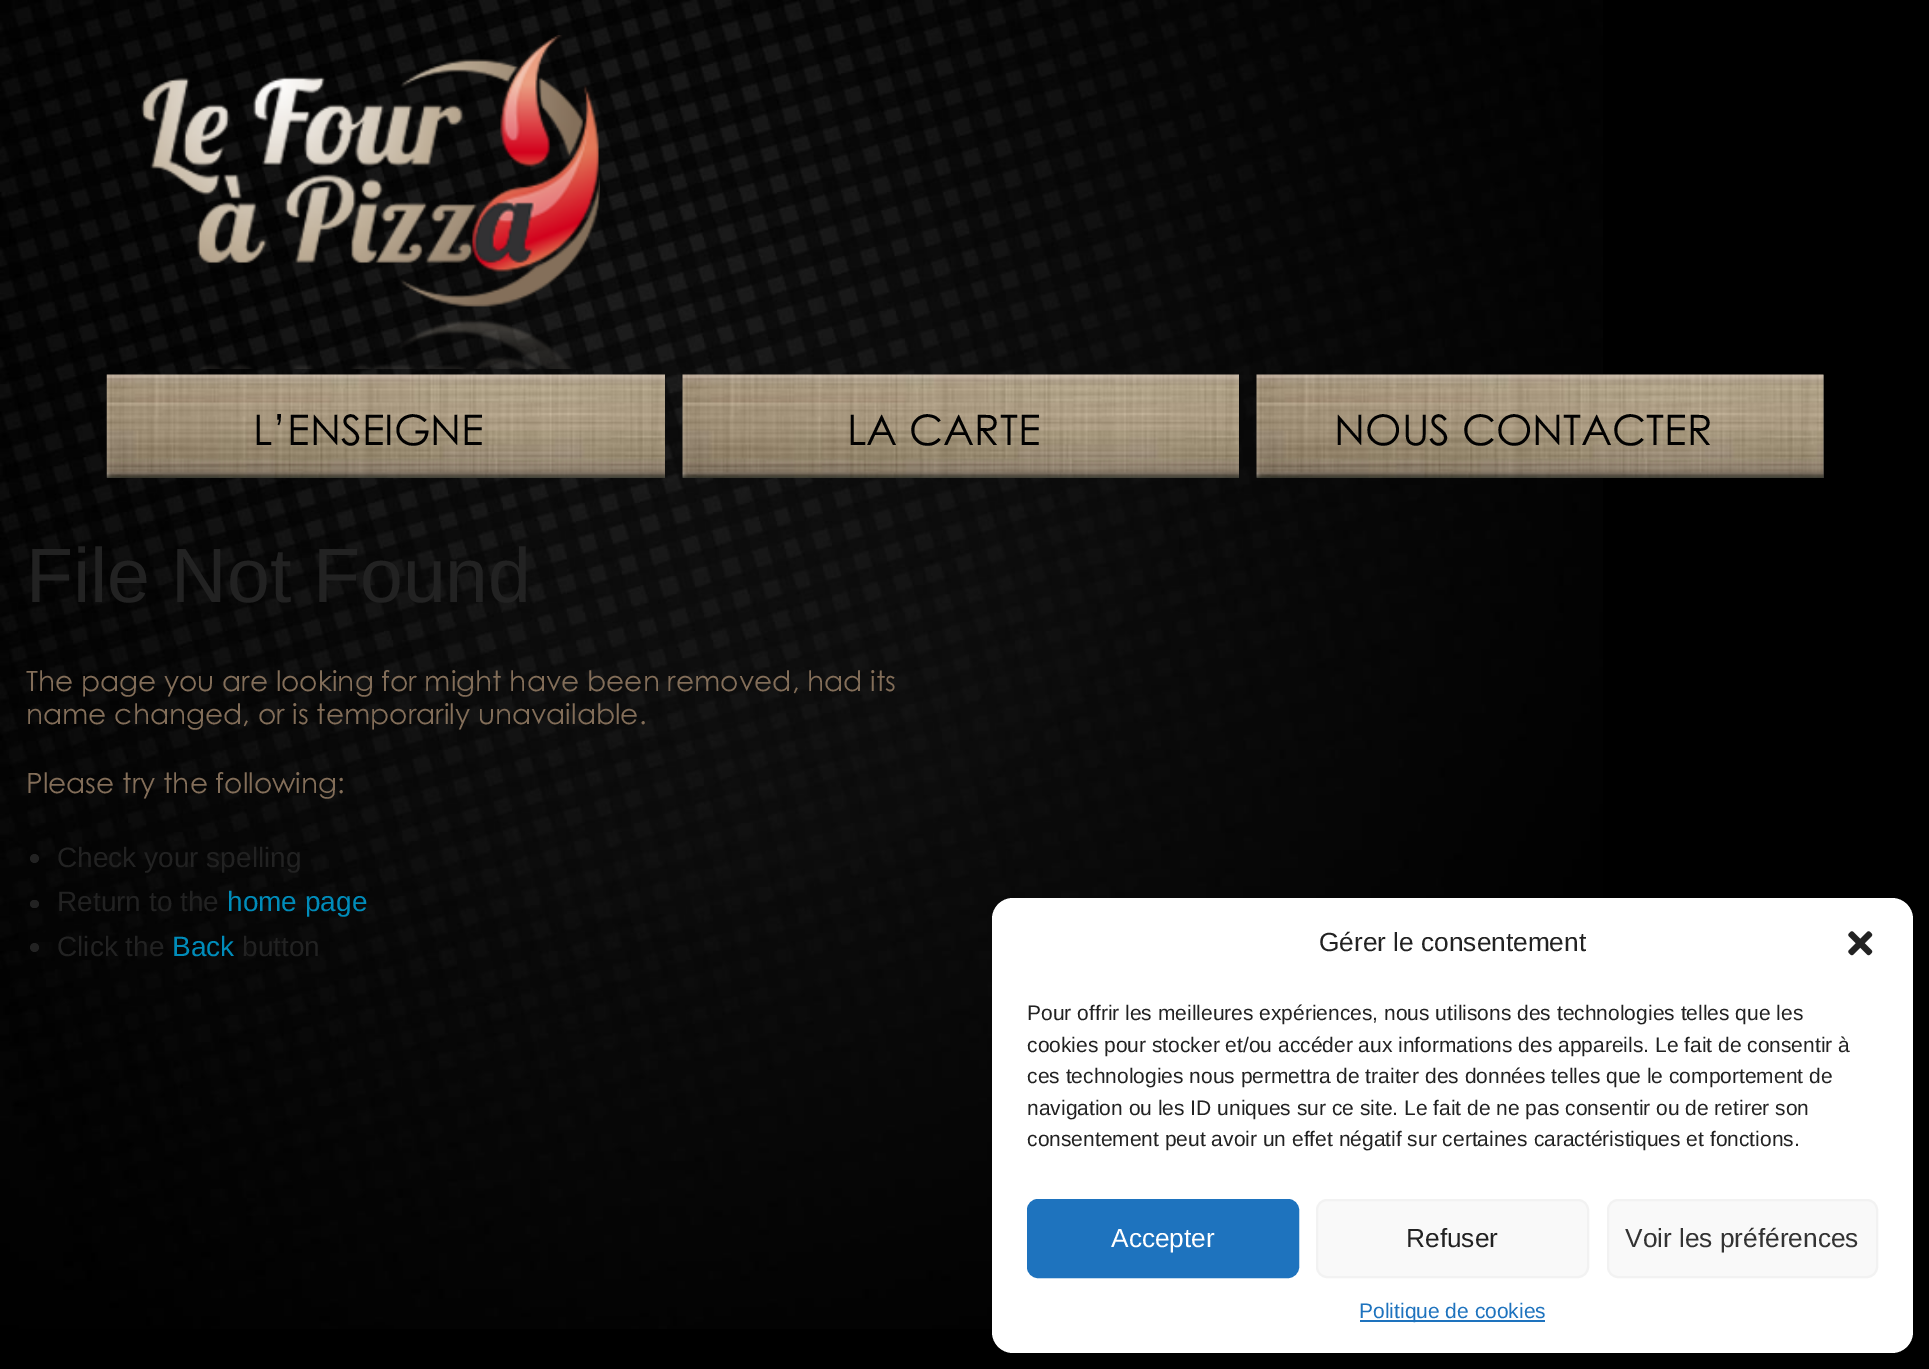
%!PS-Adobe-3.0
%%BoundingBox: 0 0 1929 1369
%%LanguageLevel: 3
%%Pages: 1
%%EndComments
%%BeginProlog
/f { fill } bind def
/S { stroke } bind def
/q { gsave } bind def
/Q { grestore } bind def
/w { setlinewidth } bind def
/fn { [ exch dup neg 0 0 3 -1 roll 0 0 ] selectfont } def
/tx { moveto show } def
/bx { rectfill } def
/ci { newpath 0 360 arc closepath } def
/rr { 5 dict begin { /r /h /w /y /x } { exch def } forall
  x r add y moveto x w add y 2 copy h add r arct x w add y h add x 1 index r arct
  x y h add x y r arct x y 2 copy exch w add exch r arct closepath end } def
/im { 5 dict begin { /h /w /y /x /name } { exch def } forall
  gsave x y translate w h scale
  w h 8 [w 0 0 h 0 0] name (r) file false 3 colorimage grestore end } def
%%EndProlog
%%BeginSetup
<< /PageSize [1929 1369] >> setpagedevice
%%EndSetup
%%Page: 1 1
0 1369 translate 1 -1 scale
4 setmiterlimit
0 setgray
0 0 1929 1369 bx
(image0.raw) 0 0 1603 1329 im
(image1.raw) 141 35 459 334 im
(image2.raw) 106 374 559 104 im
/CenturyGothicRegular-Regular 42 fn
(L’ENSEIGNE) 253 445 tx
(image3.raw) 682 374 557 104 im
(LA CARTE) 847 445 tx
0.2 setgray
1257 375 567 103 bx
(image4.raw) 1256 374 568 104 im
0 setgray
(NOUS CONTACTER) 1334 445 tx
/LiberationSans-Regular 77 fn
0.133 setgray
(File Not Found) 26 602 tx
/CenturyGothicRegular-Regular 28 fn
0.514 0.431 0.349 setrgbcolor
(The page you are looking for might have been removed, had its) 26 691 tx
(name changed, or is temporarily unavailable.) 26 724 tx
(Please try the following:) 26 793 tx
0.133 setgray
34.5 858.5 4.5 ci f
/LiberationSans-Regular 28 fn
(Check your spelling) 57 867 tx
30 900 9 8 4 rr f
(Return to the) 57 911 tx
0 0.549 0.729 setrgbcolor
(home page) 227 911 tx
0.133 setgray
34.5 947.5 4.5 ci f
(Click the) 57 956 tx
0 0.549 0.729 setrgbcolor
(Back) 172 956 tx
0.133 setgray
(button) 242 956 tx
1 setgray
992 898 921 455 21 rr f
/LiberationSans-Regular 26.25 fn
0.133 setgray
(Gérer le consentement) 1319 951 tx
(image5.raw) 1848 931 25 25 im
/LiberationSans-Regular 21 fn
(Pour offrir les meilleures expériences, nous utilisons des technologies telles que les) 1027 1020 tx
(cookies pour stocker et/ou accéder aux informations des appareils. Le fait de consentir à) 1027 1052 tx
(ces technologies nous permettra de traiter des données telles que le comportement de) 1027 1083 tx
(navigation ou les ID uniques sur ce site. Le fait de ne pas consentir ou de retirer son) 1027 1115 tx
(consentement peut avoir un effet négatif sur certaines caractéristiques et fonctions.) 1027 1146 tx
0.118 0.451 0.745 setrgbcolor
1028 1200 270 77 10 rr q f Q
2 w
S
/LiberationSans-Regular 26.25 fn
1 setgray
(Accepter) 1111 1247 tx
0.976 setgray
1317 1200 271 77 10 rr q f Q
0.949 setgray
S
0.133 setgray
(Refuser) 1406 1247 tx
0.976 setgray
1608 1200 269 77 10 rr q f Q
0.949 setgray
S
0.2 setgray
(Voir les préférences) 1625 1247 tx
0.118 0.451 0.745 setrgbcolor
1360 1320 185 2 bx
/LiberationSans-Regular 21 fn
(Politique de cookies) 1359 1318 tx
showpage
%%EOF
